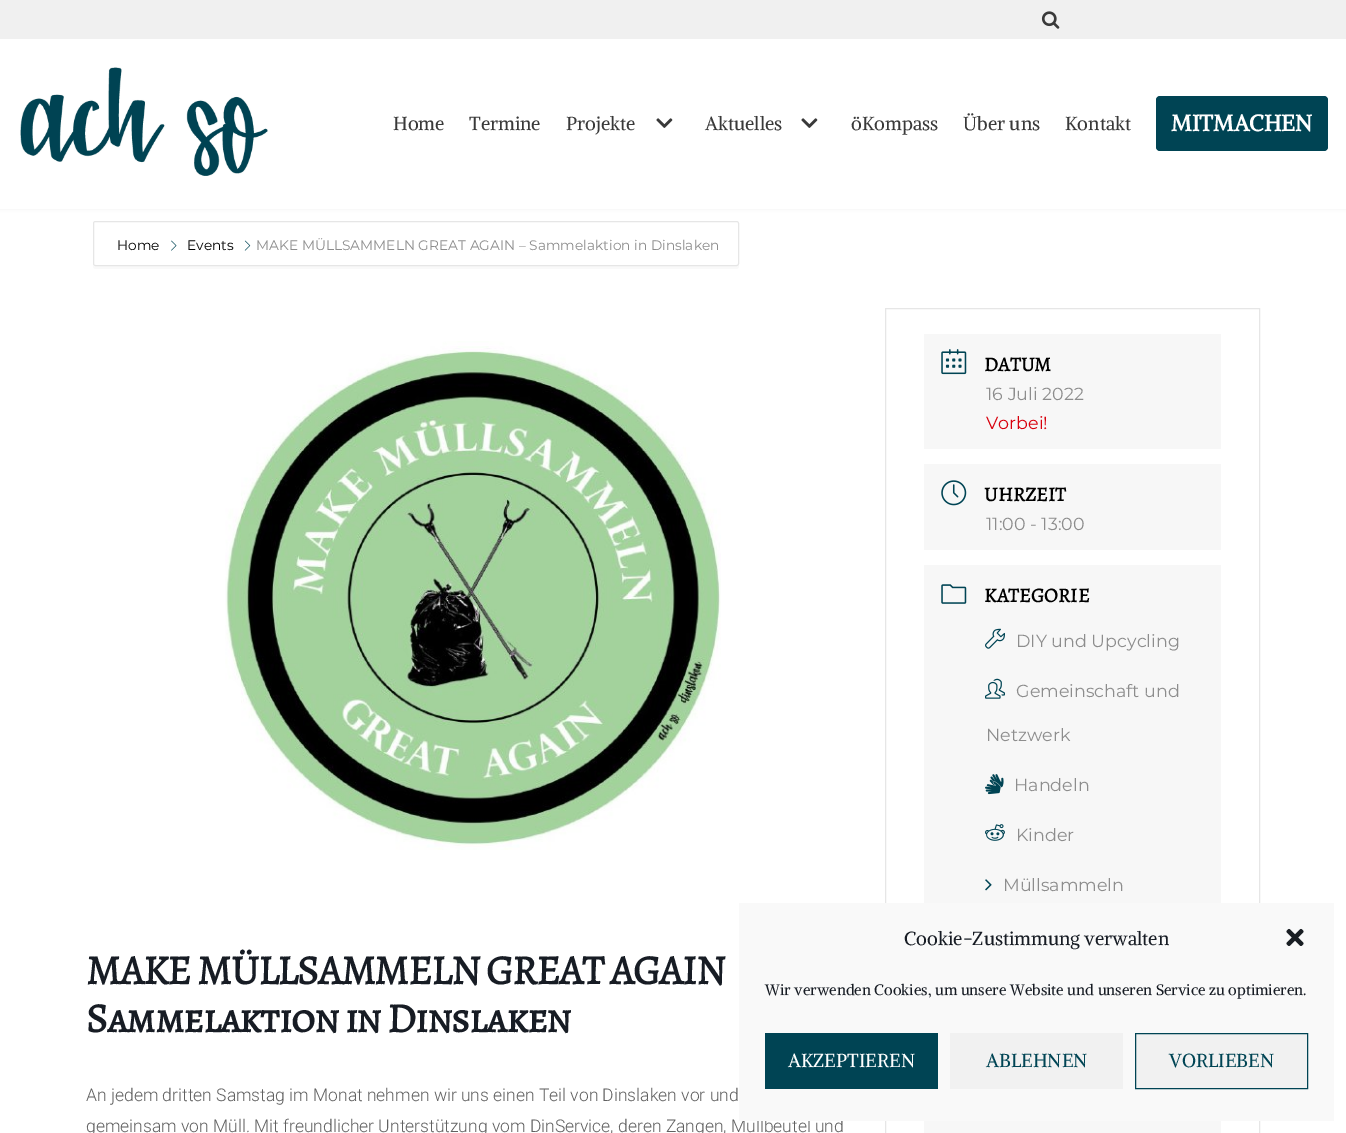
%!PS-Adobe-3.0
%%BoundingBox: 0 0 1346 1133
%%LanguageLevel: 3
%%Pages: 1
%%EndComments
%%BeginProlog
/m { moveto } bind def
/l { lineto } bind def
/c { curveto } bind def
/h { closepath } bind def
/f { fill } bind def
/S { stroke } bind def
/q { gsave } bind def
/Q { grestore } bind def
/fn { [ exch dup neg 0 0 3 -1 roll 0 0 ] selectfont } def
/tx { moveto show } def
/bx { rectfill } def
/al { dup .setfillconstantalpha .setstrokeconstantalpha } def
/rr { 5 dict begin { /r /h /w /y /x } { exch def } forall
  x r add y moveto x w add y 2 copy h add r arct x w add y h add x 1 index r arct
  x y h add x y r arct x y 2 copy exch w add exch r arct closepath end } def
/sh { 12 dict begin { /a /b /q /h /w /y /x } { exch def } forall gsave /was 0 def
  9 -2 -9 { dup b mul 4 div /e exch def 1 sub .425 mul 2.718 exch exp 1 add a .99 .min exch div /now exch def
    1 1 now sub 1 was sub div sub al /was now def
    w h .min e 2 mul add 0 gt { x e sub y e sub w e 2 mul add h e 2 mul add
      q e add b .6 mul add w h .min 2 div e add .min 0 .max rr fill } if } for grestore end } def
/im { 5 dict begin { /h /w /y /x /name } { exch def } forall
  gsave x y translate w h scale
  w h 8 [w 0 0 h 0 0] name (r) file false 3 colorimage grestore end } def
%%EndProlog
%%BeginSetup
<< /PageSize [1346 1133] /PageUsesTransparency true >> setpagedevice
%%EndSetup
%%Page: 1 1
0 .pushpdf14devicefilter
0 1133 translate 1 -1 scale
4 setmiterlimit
1 setgray
0 0 1346 1133 bx
0 setgray
0 -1 1346 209 0 2 0.1 sh
0.941 setgray
0 0 1346 39 bx
(image0.raw) 1041 11 19 18 im
1 setgray
0 39 1346 170 bx
(image1.raw) 20 67 248 109 im
/Alike-Regular 18.75 fn
0.224 setgray
(Home) 393 130 tx
(Termine) 469 130 tx
(Projekte) 566 130 tx
(image2.raw) 656 118 17 10 im
(Aktuelles) 705 130 tx
(image2.raw) 801 118 17 10 im
(öKompass) 851 130 tx
(Über uns) 963 130 tx
(Kontakt) 1065 130 tx
0 0.267 0.329 setrgbcolor
1156 96 172 55 4 rr f
/Alike-Bold 22.5 fn
1 setgray
(MITMACHEN) 1171 131 tx
0.976 setgray
93 265 m 93 266 l 93 268 94 269 96 269 c 736 269 l 738 269 739 268 739 266 c 739 225 l 739 264 l 739 265 738 266 736 266 c 95 266 l 94 266 93 266 93 265 c h f
0.902 setgray
93.5 221.5 645 44 2 rr S
/Montserrat-Regular 13.75 fn
0 setgray
(Home) 117 250 tx
(image3.raw) 171 240 6 11 im
(Events) 187 250 tx
(image4.raw) 244 240 7 11 im
0.553 setgray
(MAKE MÜLLSAMMELN GREAT AGAIN – Sammelaktion in Dinslaken) 256 250 tx
0.902 setgray
885.5 308.5 374 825 rectstroke
0.969 setgray
924 334 297 115 bx
(image5.raw) 941 349 26 26 im
/AlegreyaSC-Bold 20 fn
0 setgray
(DATUM) 984 371 tx
/Montserrat-Regular 17.5 fn
0.553 setgray
(16 Juli 2022) 986 400 tx
0.847 0 0.047 setrgbcolor
(Vorbei!) 986 429 tx
0.969 setgray
924 464 297 86 bx
(image6.raw) 941 480 26 26 im
/AlegreyaSC-Bold 20 fn
0 setgray
(UHRZEIT) 984 501 tx
/Montserrat-Regular 17.5 fn
0.553 setgray
(11:00 - 13:00) 986 530 tx
0.969 setgray
924 565 297 338 bx
(image7.raw) 941 584 26 20 im
/AlegreyaSC-Bold 20 fn
0 setgray
(KATEGORIE) 984 602 tx
(image8.raw) 985 628 20 21 im
/Montserrat-Regular 17.5 fn
0.553 setgray
(DIY und Upcycling) 1016 647 tx
(image9.raw) 985 678 20 21 im
(Gemeinschaft und) 1016 697 tx
(Netzwerk) 986 741 tx
(image10.raw) 985 774 19 21 im
(Handeln) 1014 791 tx
(image11.raw) 985 824 20 17 im
(Kinder) 1016 841 tx
(image12.raw) 985 879 7 12 im
(Müllsammeln) 1003 891 tx
0.969 setgray
924 1121 297 12 bx
(image13.raw) 225 341 496 509 im
/AlegreyaSC-Bold 41.25 fn
0.09 0.11 0.141 setrgbcolor
86 984 m -1.25 0 (MAKE MÜLLSAMMELN GREAT AGAIN) ashow
86 1032 m -1.25 0 (Sammelaktion in Dinslaken) ashow
/Roboto-Light 17.5 fn
0.38 setgray
(An jedem dritten Samstag im Monat nehmen wir uns einen Teil von Dinslaken vor und) 86 1101 tx
(gemeinsam von Müll. Mit freundlicher Unterstützung vom DinService, deren Zangen, Müllbeutel und) 86 1132 tx
0.976 setgray
739 903 595 218 bx
/Alike-Regular 18.75 fn
0.09 0.11 0.141 setrgbcolor
(Cookie-Zustimmung verwalten) 904 945 tx
(image14.raw) 1286 928 18 18 im
/Alike-Regular 15 fn
(Wir verwenden Cookies, um unsere Website und unseren Service zu optimieren.) 765 995 tx
0 0.267 0.329 setrgbcolor
765 1033 173 56 bx
/Alike-Regular 18.75 fn
1 setgray
(AKZEPTIEREN) 788 1067 tx
0.945 setgray
950 1033 173 56 bx
0 0.267 0.329 setrgbcolor
(ABLEHNEN) 986 1067 tx
0.945 setgray
1135.5 1033.5 m 1307.5 1033.5 l 1307.5 1088.5 l 1135.5 1088.5 l h q f Q
0 0.267 0.329 setrgbcolor
S
(VORLIEBEN) 1169 1067 tx
.poppdf14devicefilter showpage
%%EOF
